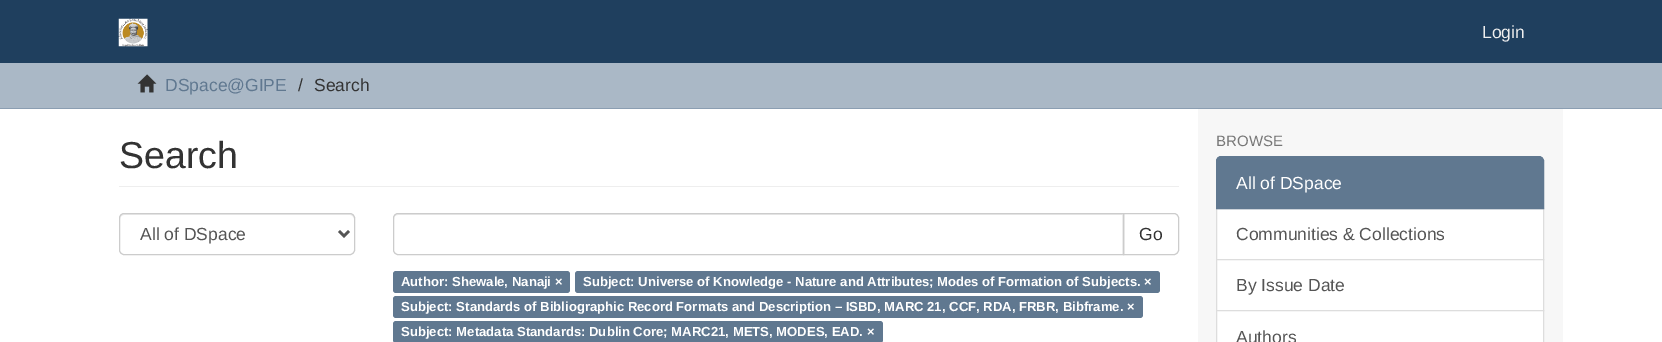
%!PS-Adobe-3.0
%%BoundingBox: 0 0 1662 342
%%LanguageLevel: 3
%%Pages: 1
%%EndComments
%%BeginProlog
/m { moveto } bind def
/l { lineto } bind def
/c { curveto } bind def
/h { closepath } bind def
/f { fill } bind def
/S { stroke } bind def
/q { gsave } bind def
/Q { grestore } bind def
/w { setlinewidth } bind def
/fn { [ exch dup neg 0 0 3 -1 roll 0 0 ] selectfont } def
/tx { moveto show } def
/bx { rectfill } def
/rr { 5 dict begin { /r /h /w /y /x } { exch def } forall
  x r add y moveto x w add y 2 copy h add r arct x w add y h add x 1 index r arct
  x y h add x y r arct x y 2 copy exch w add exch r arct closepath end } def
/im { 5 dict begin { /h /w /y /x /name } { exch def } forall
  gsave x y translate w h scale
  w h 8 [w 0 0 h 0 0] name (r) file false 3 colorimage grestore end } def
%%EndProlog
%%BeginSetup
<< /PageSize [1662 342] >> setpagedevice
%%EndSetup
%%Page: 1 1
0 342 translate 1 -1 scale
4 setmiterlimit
1 setgray
0 0 1662 342 bx
0.122 0.247 0.369 setrgbcolor
0 0 1662 63 bx
(image0.raw) 118 18 30 29 im
/LiberationSans-Regular 17.5 fn
0.933 setgray
(Login) 1482 38 tx
0.667 0.722 0.776 setrgbcolor
0 63 1662 45 bx
0.545 0.62 0.698 setrgbcolor
0 108 1662 1 bx
(image1.raw) 137 74 20 19 im
0.376 0.471 0.565 setrgbcolor
(DSpace@GIPE) 165 91 tx
0.2 setgray
(/) 298 91 tx
(Search) 314 91 tx
0.969 setgray
1198 109 365 233 bx
0.933 setgray
119 186 1060 1 bx
/LiberationSans-Regular 37.5 fn
0.2 setgray
(Search) 119 168 tx
0.925 setgray
124 215 m 350 215 l 352 215 354 217 354 219 c 354 216 353 214 350 214 c 124 214 l 121 214 120 216 120 219 c 120 217 122 215 124 215 c h f
0.8 setgray
119.5 213.5 235 41 4.5 rr S
0.333 setgray
2.5 w
339 231 m 344 236 l 349 231 l S
/LiberationSans-Regular 17.5 fn
(All of DSpace) 140 240 tx
0.8 setgray
1 w
1123.5 213.5 m 1174 213.5 l 1176.5 213.5 1178.5 215.5 1178.5 218 c 1178.5 250 l 1178.5 252.5 1176.5 254.5 1174 254.5 c 1123.5 254.5 l h S
1 setgray
398 213 m 1124 213 l 1124 255 l 398 255 l 395 255 393 253 393 250 c 393 218 l 393 215 395 213 398 213 c h f
0.925 setgray
398 215 m 1122 215 l 1122 254 l 1123 254 l 1123 214 l 398 214 l 396 214 394 216 394 218 c 394 219 l 394 217 395 215 398 215 c h f
0.8 setgray
398 213.5 m 1123.5 213.5 l 1123.5 254.5 l 398 254.5 l 395.5 254.5 393.5 252.5 393.5 250 c 393.5 218 l 393.5 215.5 395.5 213.5 398 213.5 c h S
0.2 setgray
(Go) 1139 240 tx
0.376 0.471 0.565 setrgbcolor
393 271 177 22 3 rr f
/LiberationSans-Bold 13.12 fn
1 setgray
(Author: Shewale, Nanaji ×) 401 286 tx
0.376 0.471 0.565 setrgbcolor
575 271 585 22 3 rr f
1 setgray
(Subject: Universe of Knowledge - Nature and Attributes; Modes of Formation of Subjects. ×) 583 286 tx
0.376 0.471 0.565 setrgbcolor
393 296 750 22 3 rr f
1 setgray
(Subject: Standards of Bibliographic Record Formats and Description – ISBD, MARC 21, CCF, RDA, FRBR, Bibframe. ×) 401 311 tx
0.376 0.471 0.565 setrgbcolor
393 321 490 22 3 rr f
1 setgray
(Subject: Metadata Standards: Dublin Core; MARC21, METS, MODES, EAD. ×) 401 336 tx
/LiberationSans-Regular 15 fn
0.467 setgray
(BROWSE) 1216 146 tx
1 setgray
1216.5 208.5 m 1543.5 208.5 l 1543.5 259.5 l 1216.5 259.5 l h q f Q
0.867 setgray
S
0.376 0.471 0.565 setrgbcolor
1221 156.5 m 1539 156.5 l 1541.5 156.5 1543.5 158.5 1543.5 161 c 1543.5 208.5 l 1216.5 208.5 l 1216.5 161 l 1216.5 158.5 1218.5 156.5 1221 156.5 c h q f Q
S
/LiberationSans-Regular 17.5 fn
1 setgray
(All of DSpace) 1236 189 tx
0.333 setgray
(Communities & Collections) 1236 240 tx
1 setgray
1216.5 259.5 m 1543.5 259.5 l 1543.5 310.5 l 1216.5 310.5 l h q f Q
0.867 setgray
S
0.333 setgray
(By Issue Date) 1236 291 tx
1 setgray
1216.5 310.5 m 1543.5 310.5 l 1543.5 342.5 l 1216.5 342.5 l h q f Q
0.867 setgray
S
0.333 setgray
(Authors) 1236 343 tx
showpage
%%EOF
